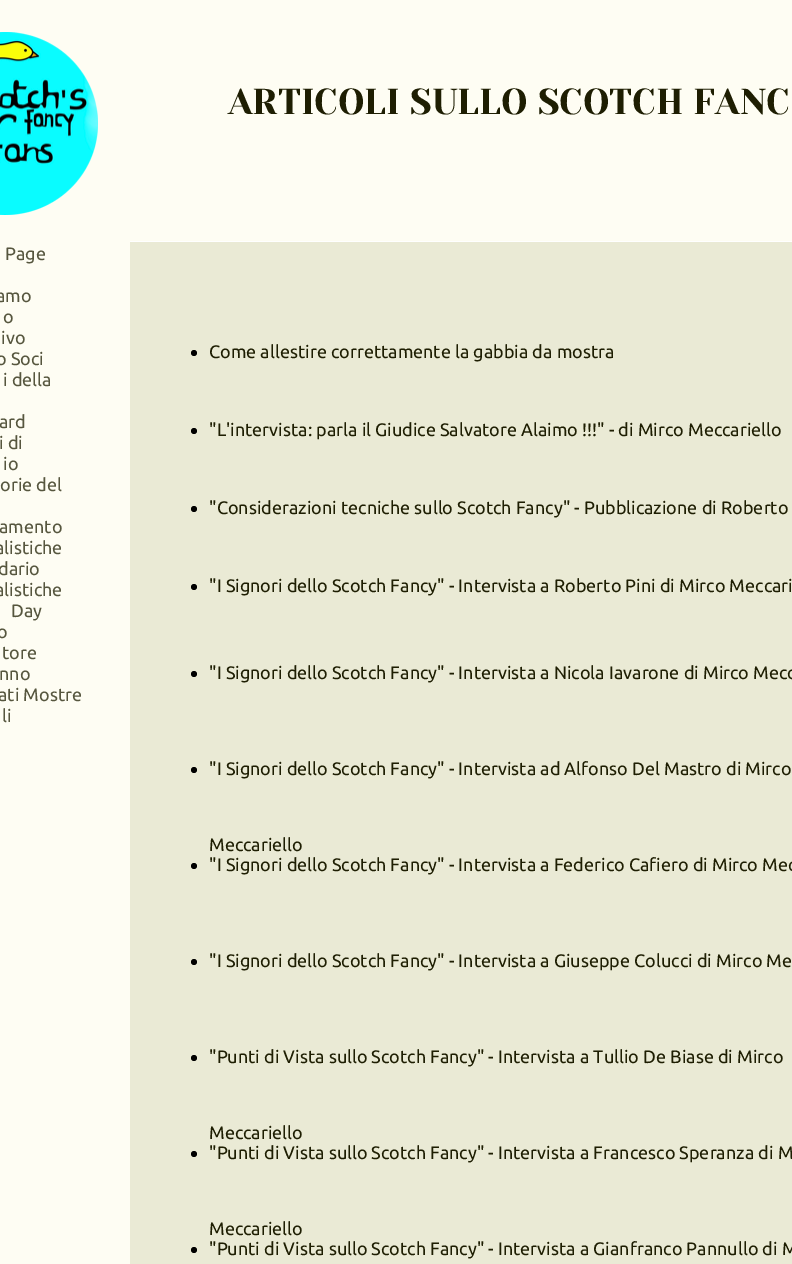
%!PS-Adobe-3.0
%%BoundingBox: 0 0 792 1264
%%LanguageLevel: 3
%%Pages: 1
%%EndComments
%%BeginProlog
/f { fill } bind def
/fn { [ exch dup neg 0 0 3 -1 roll 0 0 ] selectfont } def
/tx { moveto show } def
/bx { rectfill } def
/ci { newpath 0 360 arc closepath } def
/im { 5 dict begin { /h /w /y /x /name } { exch def } forall
  gsave x y translate w h scale
  w h 8 [w 0 0 h 0 0] name (r) file false 3 colorimage grestore end } def
%%EndProlog
%%BeginSetup
<< /PageSize [792 1264] >> setpagedevice
%%EndSetup
%%Page: 1 1
0 1264 translate 1 -1 scale
4 setmiterlimit
1 setgray
0 0 792 1264 bx
0.996 0.992 0.953 setrgbcolor
0 0 130 1264 bx
130 0 662 241 bx
(image0.raw) 0 32 98 183 im
/YesevaOne-Regular 36 fn
0.118 0.118 0.008 setrgbcolor
(ARTICOLI SULLO SCOTCH FANC) 228 114 tx
/Ubuntu-Regular 18 fn
0.337 0.337 0.243 setrgbcolor
(Page) 5 260 tx
(amo) -4 302 tx
(o) 3 323 tx
(ivo) 1 344 tx
(o Soci) -4 365 tx
(i della) 3 386 tx
(ard) -1 428 tx
(i di) -1 449 tx
(io) 3 470 tx
(orie del) 0 491 tx
(amento) -1 533 tx
(alistiche) -5 554 tx
(dario) -2 575 tx
(alistiche) -5 596 tx
(Day) 11 617 tx
(o) -3 638 tx
(tore) 2 659 tx
(nno) -1 680 tx
(ati Mostre) -2 701 tx
(li) 2 722 tx
0.918 0.918 0.835 setrgbcolor
130 242 662 1022 bx
0 setgray
194 353 3 ci f
0.118 0.118 0.008 setrgbcolor
(Come allestire correttamente la gabbia da mostra) 209 358 tx
0 setgray
194 431 3 ci f
0.118 0.118 0.008 setrgbcolor
("L'intervista: parla il Giudice Salvatore Alaimo !!!" - di Mirco Meccariello) 209 436 tx
0 setgray
194 509 3 ci f
0.118 0.118 0.008 setrgbcolor
("Considerazioni tecniche sullo Scotch Fancy" - Pubblicazione di Roberto) 209 514 tx
0 setgray
194 587 3 ci f
0.118 0.118 0.008 setrgbcolor
("I Signori dello Scotch Fancy" - Intervista a Roberto Pini di Mirco Meccari) 209 592 tx
0 setgray
194 674 3 ci f
0.118 0.118 0.008 setrgbcolor
("I Signori dello Scotch Fancy" - Intervista a Nicola Iavarone di Mirco Mecc) 209 679 tx
0 setgray
194 770 3 ci f
0.118 0.118 0.008 setrgbcolor
("I Signori dello Scotch Fancy" - Intervista ad Alfonso Del Mastro di Mirco) 209 775 tx
(Meccariello) 209 851 tx
0 setgray
194 866 3 ci f
0.118 0.118 0.008 setrgbcolor
("I Signori dello Scotch Fancy" - Intervista a Federico Cafiero di Mirco Mec) 209 871 tx
0 setgray
194 962 3 ci f
0.118 0.118 0.008 setrgbcolor
("I Signori dello Scotch Fancy" - Intervista a Giuseppe Colucci di Mirco Me) 209 967 tx
0 setgray
194 1058 3 ci f
0.118 0.118 0.008 setrgbcolor
("Punti di Vista sullo Scotch Fancy" - Intervista a Tullio De Biase di Mirco) 209 1063 tx
(Meccariello) 209 1139 tx
0 setgray
194 1154 3 ci f
0.118 0.118 0.008 setrgbcolor
("Punti di Vista sullo Scotch Fancy" - Intervista a Francesco Speranza di M) 209 1159 tx
(Meccariello) 209 1235 tx
0 setgray
194 1250 3 ci f
0.118 0.118 0.008 setrgbcolor
("Punti di Vista sullo Scotch Fancy" - Intervista a Gianfranco Pannullo di M) 209 1255 tx
showpage
%%EOF
